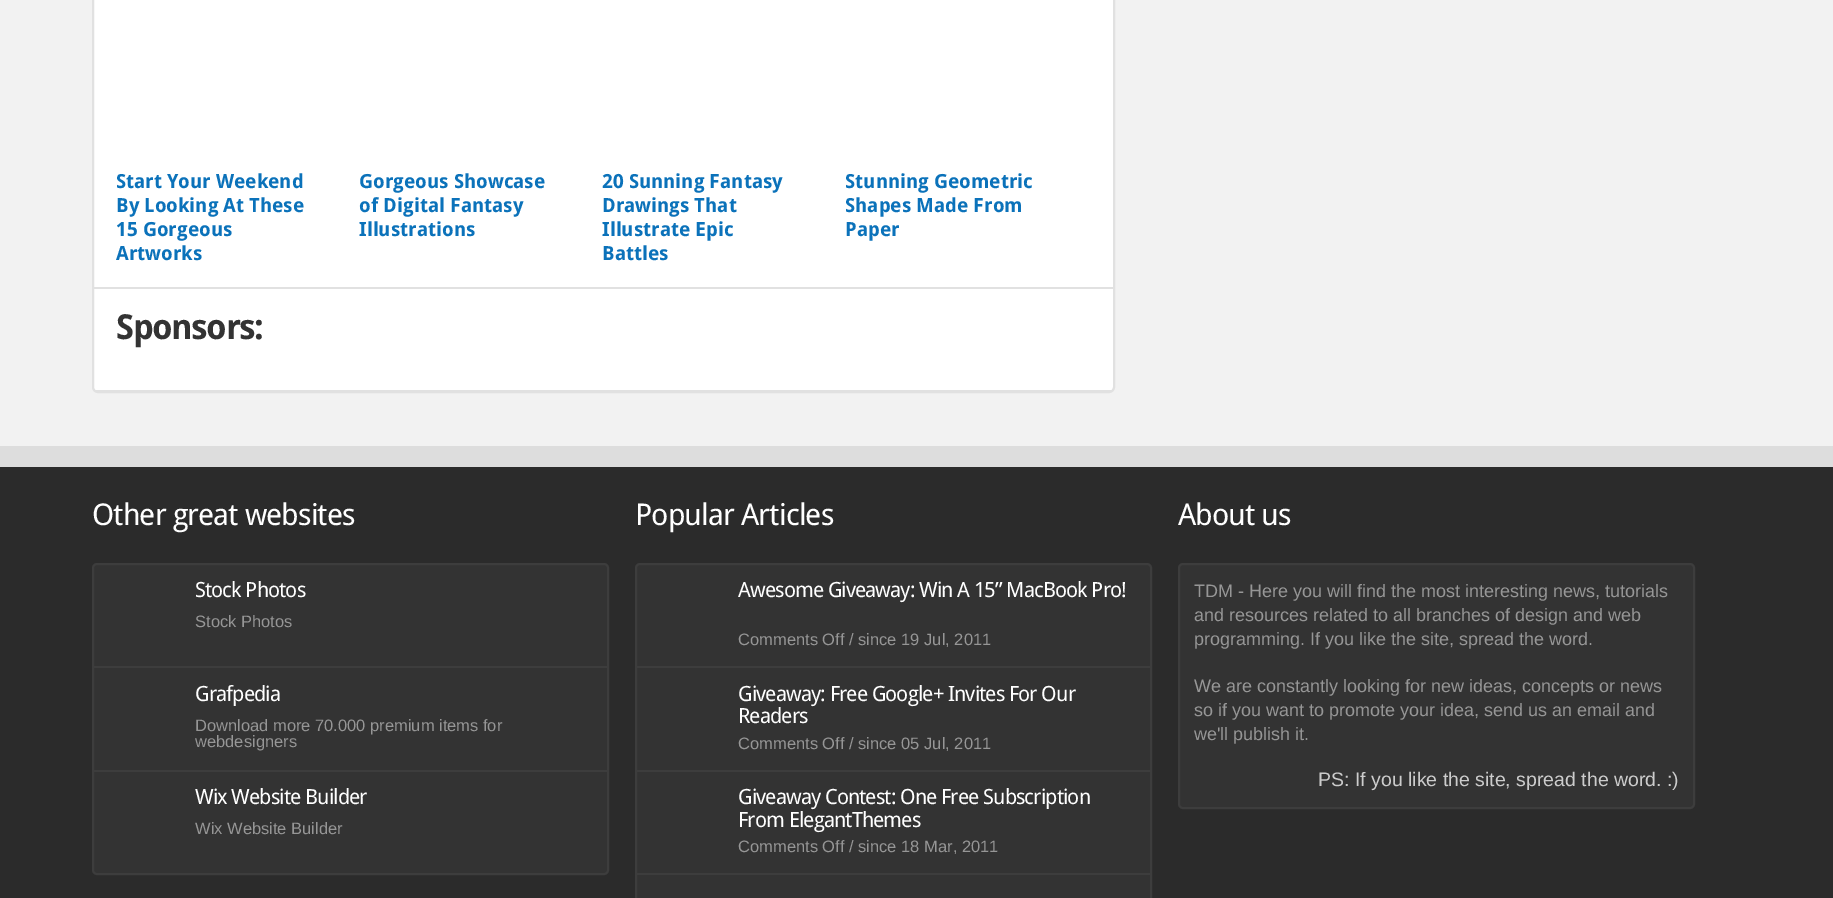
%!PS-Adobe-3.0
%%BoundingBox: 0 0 1833 898
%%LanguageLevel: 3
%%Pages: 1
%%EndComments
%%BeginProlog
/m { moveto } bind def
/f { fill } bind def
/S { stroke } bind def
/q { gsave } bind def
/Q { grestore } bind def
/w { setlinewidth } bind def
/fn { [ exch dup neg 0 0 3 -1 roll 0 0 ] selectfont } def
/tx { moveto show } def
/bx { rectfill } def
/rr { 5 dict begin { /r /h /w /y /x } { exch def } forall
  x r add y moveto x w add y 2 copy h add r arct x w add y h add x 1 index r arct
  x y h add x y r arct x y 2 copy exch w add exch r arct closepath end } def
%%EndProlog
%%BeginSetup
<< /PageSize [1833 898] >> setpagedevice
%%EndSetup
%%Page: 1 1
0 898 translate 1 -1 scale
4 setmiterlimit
0.949 setgray
0 0 1833 898 bx
1 setgray
93 -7 1021 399 5 rr q f Q
0.882 setgray
2 w
S
93 287 1020 2 bx
/DroidSans-Bold 19.5 fn
0.043 0.447 0.729 setrgbcolor
(Start Your Weekend) 116 188 tx
(By Looking At These) 116 212 tx
(15 Gorgeous) 116 236 tx
(Artworks) 116 260 tx
(Gorgeous Showcase) 359 188 tx
(of Digital Fantasy) 359 212 tx
(Illustrations) 359 236 tx
(20 Sunning Fantasy) 602 188 tx
(Drawings That) 602 212 tx
(Illustrate Epic) 602 236 tx
(Battles) 602 260 tx
(Stunning Geometric) 845 188 tx
(Shapes Made From) 845 212 tx
(Paper) 845 236 tx
q
93 -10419 1020 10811 5 rr clip newpath
0.882 setgray
93 390 1020 2 bx
Q
/DroidSans-Bold 34.5 fn
0.2 setgray
116 339 m -1.5 0 (Sponsors:) ashow
0.169 setgray
0 467 1833 431 bx
0.867 setgray
0 446 1833 21 bx
/DroidSans-Regular 30 fn
1 setgray
92 525 m -0.9 0 (Other great websites) ashow
0.2 setgray
93 564 515 310 4 rr q f Q
0.239 setgray
S
93 666 515 2 bx
/DroidSans-Regular 21 fn
1 setgray
195 597 m -0.9 0 (Stock Photos) ashow
/LiberationSans-Regular 16.5 fn
0.588 setgray
(Stock Photos) 195 627 tx
0.239 setgray
93 770 515 2 bx
/DroidSans-Regular 21 fn
1 setgray
195 701 m -0.9 0 (Grafpedia) ashow
/LiberationSans-Regular 16.5 fn
0.588 setgray
(Download more 70.000 premium items for) 195 731 tx
(webdesigners) 195 747 tx
/DroidSans-Regular 21 fn
1 setgray
195 804 m -0.9 0 (Wix Website Builder) ashow
/LiberationSans-Regular 16.5 fn
0.588 setgray
(Wix Website Builder) 195 834 tx
/DroidSans-Regular 30 fn
1 setgray
635 525 m -0.9 0 (Popular Articles) ashow
0.2 setgray
636 564 515 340 4 rr q f Q
0.239 setgray
S
636 666 515 2 bx
/DroidSans-Regular 21 fn
1 setgray
738 597 m -0.9 0 (Awesome Giveaway: Win A 15” MacBook Pro!) ashow
/LiberationSans-Regular 16.5 fn
0.588 setgray
(Comments Off / since 19 Jul, 2011) 738 645 tx
0.239 setgray
636 770 515 2 bx
/DroidSans-Regular 21 fn
1 setgray
738 701 m -0.9 0 (Giveaway: Free Google+ Invites For Our) ashow
738 723 m -0.9 0 (Readers) ashow
/LiberationSans-Regular 16.5 fn
0.588 setgray
(Comments Off / since 05 Jul, 2011) 738 749 tx
0.239 setgray
636 873 515 2 bx
/DroidSans-Regular 21 fn
1 setgray
738 804 m -0.9 0 (Giveaway Contest: One Free Subscription) ashow
738 827 m -0.9 0 (From ElegantThemes) ashow
/LiberationSans-Regular 16.5 fn
0.588 setgray
(Comments Off / since 18 Mar, 2011) 738 852 tx
/DroidSans-Regular 30 fn
1 setgray
1178 525 m -0.9 0 (About us) ashow
0.2 setgray
1179 564 515 244 4 rr q f Q
0.239 setgray
S
/LiberationSans-Regular 18 fn
0.588 setgray
(TDM - Here you will find the most interesting news, tutorials) 1194 597 tx
(and resources related to all branches of design and web) 1194 621 tx
(programming. If you like the site, spread the word.) 1194 645 tx
(We are constantly looking for new ideas, concepts or news) 1194 692 tx
(so if you want to promote your idea, send us an email and) 1194 716 tx
(we'll publish it.) 1194 740 tx
/LiberationSans-Regular 19.5 fn
0.8 setgray
(PS: If you like the site, spread the word. :\)) 1318 786 tx
showpage
%%EOF
